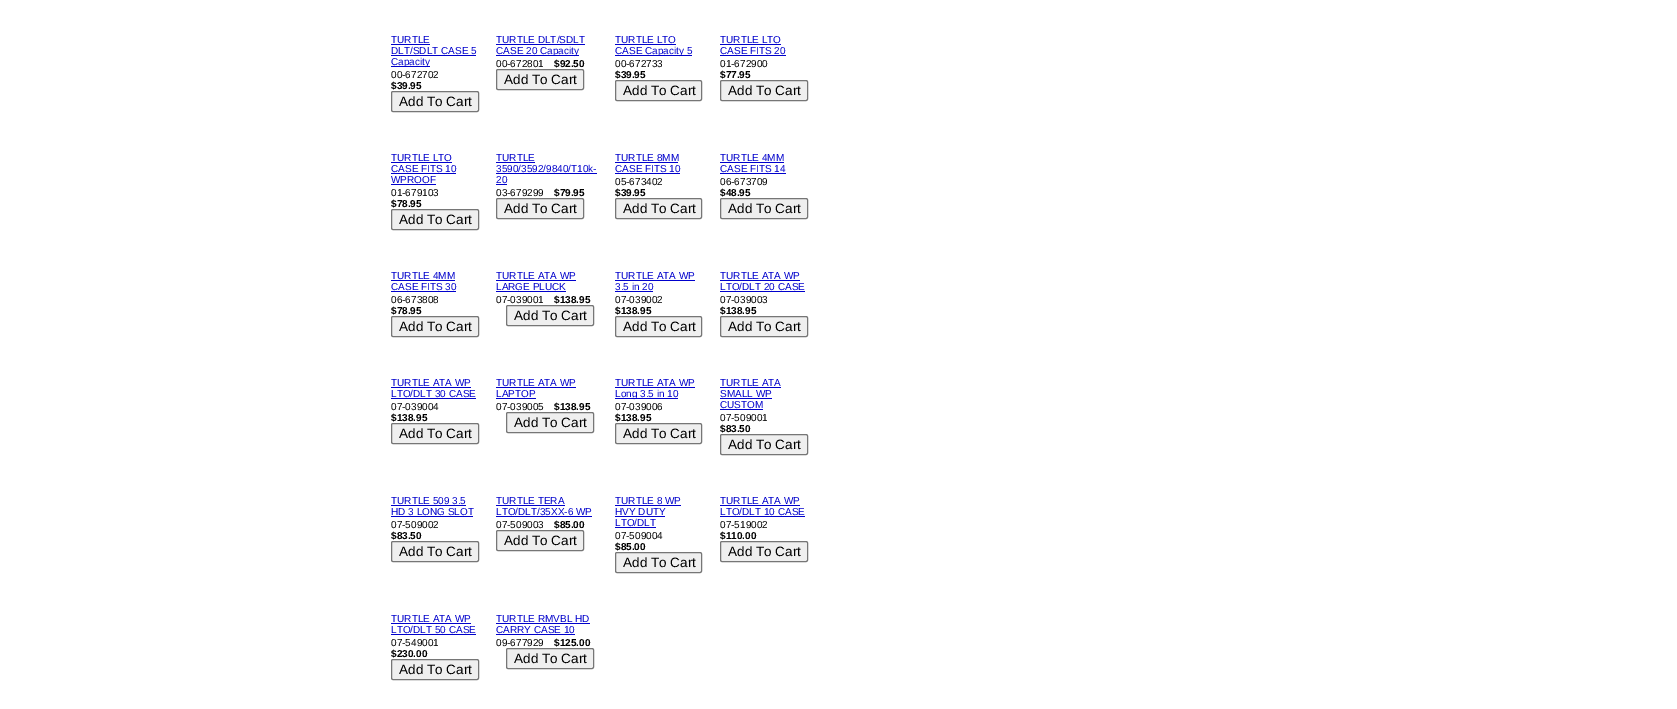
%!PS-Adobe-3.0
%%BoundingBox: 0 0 1677 709
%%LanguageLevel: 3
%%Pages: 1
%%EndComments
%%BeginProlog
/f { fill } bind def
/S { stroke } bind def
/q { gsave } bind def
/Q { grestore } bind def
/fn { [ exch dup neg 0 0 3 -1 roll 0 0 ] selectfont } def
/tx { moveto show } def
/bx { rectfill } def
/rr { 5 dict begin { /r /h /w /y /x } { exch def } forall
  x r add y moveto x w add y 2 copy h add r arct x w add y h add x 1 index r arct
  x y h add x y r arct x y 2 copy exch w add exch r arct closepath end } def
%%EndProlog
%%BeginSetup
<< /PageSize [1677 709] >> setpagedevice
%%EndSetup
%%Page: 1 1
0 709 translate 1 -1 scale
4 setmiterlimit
1 setgray
0 0 1677 709 bx
/LiberationSans-Regular 10 fn
0 0 0.8 setrgbcolor
(TURTLE) 391 43 tx
391 44 39 1 bx
(DLT/SDLT CASE 5) 391 54 tx
391 55 85 1 bx
391 66 39 1 bx
(Capacity) 391 65 tx
0 setgray
(00-672702) 391 78 tx
/LiberationSans-Bold 10 fn
($39.95) 391 89 tx
0.937 setgray
391.5 91.5 87 20 1.5 rr q f Q
0.463 setgray
S
/LiberationSans-Regular 13.5 fn
0 setgray
(Add To Cart) 399 106 tx
/LiberationSans-Regular 10 fn
0 0 0.8 setrgbcolor
(TURTLE DLT/SDLT) 496 43 tx
496 44 89 1 bx
496 55 83 1 bx
(CASE 20 Capacity) 496 54 tx
0 setgray
(00-672801) 496 67 tx
/LiberationSans-Bold 10 fn
($92.50) 554 67 tx
0.937 setgray
496.5 69.5 87 20 1.5 rr q f Q
0.463 setgray
S
/LiberationSans-Regular 13.5 fn
0 setgray
(Add To Cart) 504 84 tx
/LiberationSans-Regular 10 fn
0 0 0.8 setrgbcolor
(TURTLE LTO) 615 43 tx
615 44 61 1 bx
615 55 77 1 bx
(CASE Capacity 5) 615 54 tx
0 setgray
(00-672733) 615 67 tx
/LiberationSans-Bold 10 fn
($39.95) 615 78 tx
0.937 setgray
615.5 80.5 86 20 1.5 rr q f Q
0.463 setgray
S
/LiberationSans-Regular 13.5 fn
0 setgray
(Add To Cart) 623 95 tx
/LiberationSans-Regular 10 fn
0 0 0.8 setrgbcolor
(TURTLE LTO) 720 43 tx
720 44 61 1 bx
(CASE FITS 20) 720 54 tx
720 55 66 1 bx
0 setgray
(01-672900) 720 67 tx
/LiberationSans-Bold 10 fn
($77.95) 720 78 tx
0.937 setgray
720.5 80.5 87 20 1.5 rr q f Q
0.463 setgray
S
/LiberationSans-Regular 13.5 fn
0 setgray
(Add To Cart) 728 95 tx
/LiberationSans-Regular 10 fn
0 0 0.8 setrgbcolor
(TURTLE LTO) 391 161 tx
391 162 61 1 bx
(CASE FITS 10) 391 172 tx
391 173 65 1 bx
(WPROOF) 391 183 tx
391 184 45 1 bx
0 setgray
(01-679103) 391 196 tx
/LiberationSans-Bold 10 fn
($78.95) 391 207 tx
0.937 setgray
391.5 209.5 87 20 1.5 rr q f Q
0.463 setgray
S
/LiberationSans-Regular 13.5 fn
0 setgray
(Add To Cart) 399 224 tx
/LiberationSans-Regular 10 fn
0 0 0.8 setrgbcolor
(TURTLE) 496 161 tx
496 162 39 1 bx
(3590/3592/9840/T10k-) 496 172 tx
496 173 101 1 bx
(20) 496 183 tx
496 184 11 1 bx
0 setgray
(03-679299) 496 196 tx
/LiberationSans-Bold 10 fn
($79.95) 554 196 tx
0.937 setgray
496.5 198.5 87 20 1.5 rr q f Q
0.463 setgray
S
/LiberationSans-Regular 13.5 fn
0 setgray
(Add To Cart) 504 213 tx
/LiberationSans-Regular 10 fn
0 0 0.8 setrgbcolor
(TURTLE 8MM) 615 161 tx
615 162 63 1 bx
(CASE FITS 10) 615 172 tx
615 173 65 1 bx
0 setgray
(05-673402) 615 185 tx
/LiberationSans-Bold 10 fn
($39.95) 615 196 tx
0.937 setgray
615.5 198.5 86 20 1.5 rr q f Q
0.463 setgray
S
/LiberationSans-Regular 13.5 fn
0 setgray
(Add To Cart) 623 213 tx
/LiberationSans-Regular 10 fn
0 0 0.8 setrgbcolor
(TURTLE 4MM) 720 161 tx
720 162 64 1 bx
(CASE FITS 14) 720 172 tx
720 173 66 1 bx
0 setgray
(06-673709) 720 185 tx
/LiberationSans-Bold 10 fn
($48.95) 720 196 tx
0.937 setgray
720.5 198.5 87 20 1.5 rr q f Q
0.463 setgray
S
/LiberationSans-Regular 13.5 fn
0 setgray
(Add To Cart) 728 213 tx
/LiberationSans-Regular 10 fn
0 0 0.8 setrgbcolor
(TURTLE 4MM) 391 279 tx
391 280 64 1 bx
(CASE FITS 30) 391 290 tx
391 291 65 1 bx
0 setgray
(06-673808) 391 303 tx
/LiberationSans-Bold 10 fn
($78.95) 391 314 tx
0.937 setgray
391.5 316.5 87 20 1.5 rr q f Q
0.463 setgray
S
/LiberationSans-Regular 13.5 fn
0 setgray
(Add To Cart) 399 331 tx
/LiberationSans-Regular 10 fn
0 0 0.8 setrgbcolor
(TURTLE ATA WP) 496 279 tx
496 280 80 1 bx
(LARGE PLUCK) 496 290 tx
496 291 70 1 bx
0 setgray
(07-039001) 496 303 tx
/LiberationSans-Bold 10 fn
($138.95) 554 303 tx
0.937 setgray
506.5 305.5 87 20 1.5 rr q f Q
0.463 setgray
S
/LiberationSans-Regular 13.5 fn
0 setgray
(Add To Cart) 514 320 tx
/LiberationSans-Regular 10 fn
0 0 0.8 setrgbcolor
(TURTLE ATA WP) 615 279 tx
615 280 80 1 bx
(3.5 in 20) 615 290 tx
615 291 38 1 bx
0 setgray
(07-039002) 615 303 tx
/LiberationSans-Bold 10 fn
($138.95) 615 314 tx
0.937 setgray
615.5 316.5 86 20 1.5 rr q f Q
0.463 setgray
S
/LiberationSans-Regular 13.5 fn
0 setgray
(Add To Cart) 623 331 tx
/LiberationSans-Regular 10 fn
0 0 0.8 setrgbcolor
(TURTLE ATA WP) 720 279 tx
720 280 80 1 bx
(LTO/DLT 20 CASE) 720 290 tx
720 291 85 1 bx
0 setgray
(07-039003) 720 303 tx
/LiberationSans-Bold 10 fn
($138.95) 720 314 tx
0.937 setgray
720.5 316.5 87 20 1.5 rr q f Q
0.463 setgray
S
/LiberationSans-Regular 13.5 fn
0 setgray
(Add To Cart) 728 331 tx
/LiberationSans-Regular 10 fn
0 0 0.8 setrgbcolor
(TURTLE ATA WP) 391 386 tx
391 387 80 1 bx
(LTO/DLT 30 CASE) 391 397 tx
391 398 85 1 bx
0 setgray
(07-039004) 391 410 tx
/LiberationSans-Bold 10 fn
($138.95) 391 421 tx
0.937 setgray
391.5 423.5 87 20 1.5 rr q f Q
0.463 setgray
S
/LiberationSans-Regular 13.5 fn
0 setgray
(Add To Cart) 399 438 tx
/LiberationSans-Regular 10 fn
0 0 0.8 setrgbcolor
(TURTLE ATA WP) 496 386 tx
496 387 80 1 bx
(LAPTOP) 496 397 tx
496 398 40 1 bx
0 setgray
(07-039005) 496 410 tx
/LiberationSans-Bold 10 fn
($138.95) 554 410 tx
0.937 setgray
506.5 412.5 87 20 1.5 rr q f Q
0.463 setgray
S
/LiberationSans-Regular 13.5 fn
0 setgray
(Add To Cart) 514 427 tx
/LiberationSans-Regular 10 fn
0 0 0.8 setrgbcolor
(TURTLE ATA WP) 615 386 tx
615 387 80 1 bx
615 398 63 1 bx
(Long 3.5 in 10) 615 397 tx
0 setgray
(07-039006) 615 410 tx
/LiberationSans-Bold 10 fn
($138.95) 615 421 tx
0.937 setgray
615.5 423.5 86 20 1.5 rr q f Q
0.463 setgray
S
/LiberationSans-Regular 13.5 fn
0 setgray
(Add To Cart) 623 438 tx
/LiberationSans-Regular 10 fn
0 0 0.8 setrgbcolor
(TURTLE ATA) 720 386 tx
720 387 61 1 bx
(SMALL WP) 720 397 tx
720 398 52 1 bx
(CUSTOM) 720 408 tx
720 409 43 1 bx
0 setgray
(07-509001) 720 421 tx
/LiberationSans-Bold 10 fn
($83.50) 720 432 tx
0.937 setgray
720.5 434.5 87 20 1.5 rr q f Q
0.463 setgray
S
/LiberationSans-Regular 13.5 fn
0 setgray
(Add To Cart) 728 449 tx
/LiberationSans-Regular 10 fn
0 0 0.8 setrgbcolor
(TURTLE 509 3.5) 391 504 tx
391 505 75 1 bx
(HD 3 LONG SLOT) 391 515 tx
391 516 82 1 bx
0 setgray
(07-509002) 391 528 tx
/LiberationSans-Bold 10 fn
($83.50) 391 539 tx
0.937 setgray
391.5 541.5 87 20 1.5 rr q f Q
0.463 setgray
S
/LiberationSans-Regular 13.5 fn
0 setgray
(Add To Cart) 399 556 tx
/LiberationSans-Regular 10 fn
0 0 0.8 setrgbcolor
(TURTLE TERA) 496 504 tx
496 505 69 1 bx
(LTO/DLT/35XX-6 WP) 496 515 tx
496 516 96 1 bx
0 setgray
(07-509003) 496 528 tx
/LiberationSans-Bold 10 fn
($85.00) 554 528 tx
0.937 setgray
496.5 530.5 87 20 1.5 rr q f Q
0.463 setgray
S
/LiberationSans-Regular 13.5 fn
0 setgray
(Add To Cart) 504 545 tx
/LiberationSans-Regular 10 fn
0 0 0.8 setrgbcolor
(TURTLE 8 WP) 615 504 tx
615 505 66 1 bx
(HVY DUTY) 615 515 tx
615 516 50 1 bx
(LTO/DLT) 615 526 tx
615 527 41 1 bx
0 setgray
(07-509004) 615 539 tx
/LiberationSans-Bold 10 fn
($85.00) 615 550 tx
0.937 setgray
615.5 552.5 86 20 1.5 rr q f Q
0.463 setgray
S
/LiberationSans-Regular 13.5 fn
0 setgray
(Add To Cart) 623 567 tx
/LiberationSans-Regular 10 fn
0 0 0.8 setrgbcolor
(TURTLE ATA WP) 720 504 tx
720 505 80 1 bx
(LTO/DLT 10 CASE) 720 515 tx
720 516 85 1 bx
0 setgray
(07-519002) 720 528 tx
/LiberationSans-Bold 10 fn
($110.00) 720 539 tx
0.937 setgray
720.5 541.5 87 20 1.5 rr q f Q
0.463 setgray
S
/LiberationSans-Regular 13.5 fn
0 setgray
(Add To Cart) 728 556 tx
/LiberationSans-Regular 10 fn
0 0 0.8 setrgbcolor
(TURTLE ATA WP) 391 622 tx
391 623 80 1 bx
(LTO/DLT 50 CASE) 391 633 tx
391 634 85 1 bx
0 setgray
(07-549001) 391 646 tx
/LiberationSans-Bold 10 fn
($230.00) 391 657 tx
0.937 setgray
391.5 659.5 87 20 1.5 rr q f Q
0.463 setgray
S
/LiberationSans-Regular 13.5 fn
0 setgray
(Add To Cart) 399 674 tx
/LiberationSans-Regular 10 fn
0 0 0.8 setrgbcolor
(TURTLE RMVBL HD) 496 622 tx
496 623 94 1 bx
(CARRY CASE 10) 496 633 tx
496 634 79 1 bx
0 setgray
(09-677929) 496 646 tx
/LiberationSans-Bold 10 fn
($125.00) 554 646 tx
0.937 setgray
506.5 648.5 87 20 1.5 rr q f Q
0.463 setgray
S
/LiberationSans-Regular 13.5 fn
0 setgray
(Add To Cart) 514 663 tx
showpage
%%EOF
